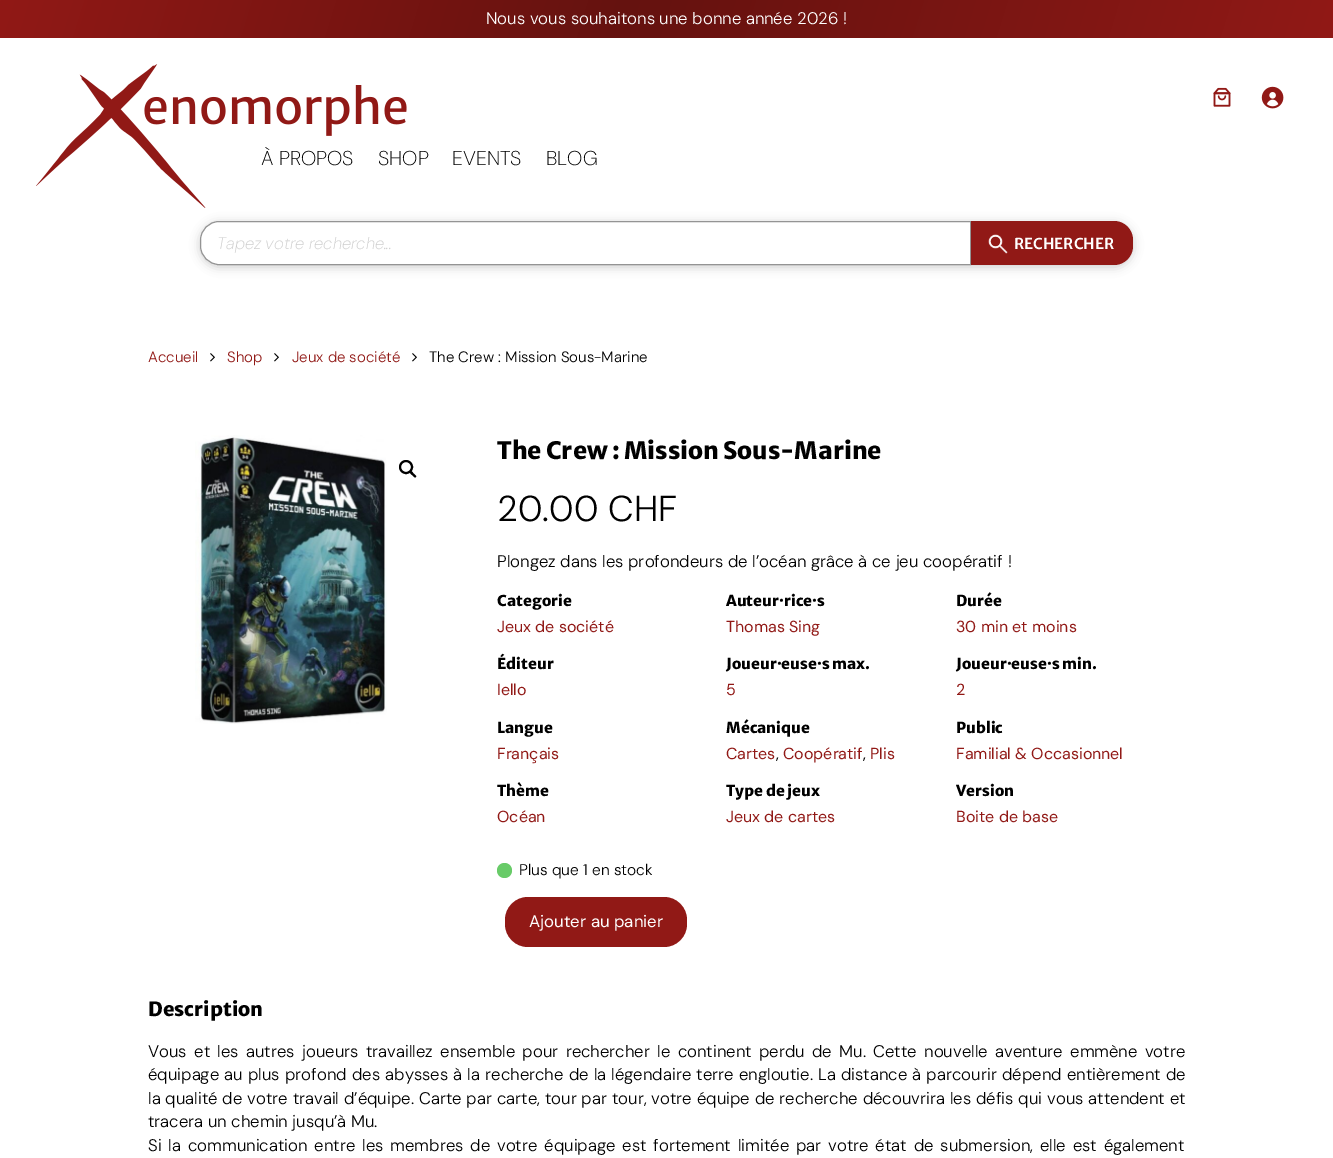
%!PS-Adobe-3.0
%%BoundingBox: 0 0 1333 1158
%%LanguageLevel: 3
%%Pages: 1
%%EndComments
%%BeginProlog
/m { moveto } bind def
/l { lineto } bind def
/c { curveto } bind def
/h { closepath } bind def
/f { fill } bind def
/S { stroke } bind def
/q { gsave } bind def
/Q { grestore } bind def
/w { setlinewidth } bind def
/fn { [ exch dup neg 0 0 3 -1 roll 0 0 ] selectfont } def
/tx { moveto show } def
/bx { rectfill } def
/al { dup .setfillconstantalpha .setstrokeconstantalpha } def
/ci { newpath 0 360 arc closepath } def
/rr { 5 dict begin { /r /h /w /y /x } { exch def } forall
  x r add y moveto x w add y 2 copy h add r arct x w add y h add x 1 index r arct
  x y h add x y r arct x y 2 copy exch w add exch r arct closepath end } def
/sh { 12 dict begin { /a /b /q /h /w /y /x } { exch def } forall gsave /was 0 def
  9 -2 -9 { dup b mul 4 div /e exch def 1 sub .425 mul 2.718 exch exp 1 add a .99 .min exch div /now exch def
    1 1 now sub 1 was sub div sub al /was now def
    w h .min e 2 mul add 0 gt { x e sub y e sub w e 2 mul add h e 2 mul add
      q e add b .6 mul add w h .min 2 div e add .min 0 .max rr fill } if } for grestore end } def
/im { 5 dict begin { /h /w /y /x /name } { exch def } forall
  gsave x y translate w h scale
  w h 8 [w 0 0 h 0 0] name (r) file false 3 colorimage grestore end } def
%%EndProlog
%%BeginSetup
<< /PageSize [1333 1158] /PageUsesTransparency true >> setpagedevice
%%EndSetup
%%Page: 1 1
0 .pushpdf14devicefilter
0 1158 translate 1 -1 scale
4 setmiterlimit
1 setgray
0 0 1333 1158 bx
q 0 0 m 1333 0 l 1333 38 l 0 38 l h clip newpath
<< /ShadingType 2 /ColorSpace /DeviceRGB /Coords [52 -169 1281 207] /Extend [true true] /Function << /FunctionType 3 /Domain [0 1] /Functions [<< /FunctionType 2 /Domain [0 1] /C0 [0.569 0.098 0.086] /C1 [0.396 0.071 0.059] /N 1 >> << /FunctionType 2 /Domain [0 1] /C0 [0.396 0.071 0.059] /C1 [0.569 0.098 0.086] /N 1 >>] /Bounds [0.47] /Encode [0 1 0 1] >> >> shfill Q
/DMSans-Light 16.8 fn
(Nous vous souhaitons une bonne année 2026 !) 486 24 tx
(image0.raw) 1213 87 18 20 im
(image1.raw) 1261 86 23 23 im
0 setgray
200 223 933 44 19 5 0.2 sh
(image2.raw) 36 64 371 144 im
/DMSans-ExtraLight 20 fn
(À PROPOS) 261 165 tx
(SHOP) 378 165 tx
(EVENTS) 452 165 tx
(BLOG) 546 165 tx
1 setgray
219 221.5 m 970.5 221.5 l 970.5 264.5 l 219 264.5 l 209 264.5 200.5 256 200.5 246 c 200.5 240 l 200.5 230 209 221.5 219 221.5 c h q f Q
0.58 setgray
S
/DMSans-ExtraLightItalic 16.8 fn
0.808 setgray
(Tapez votre recherche...) 217 249 tx
0.569 0.098 0.086 setrgbcolor
971 221 m 1114 221 l 1124.5 221 1133 229.5 1133 240 c 1133 246 l 1133 256.5 1124.5 265 1114 265 c 971 265 l h f
(image3.raw) 988 234 20 20 im
/MerriweatherSans-SemiBold 15 fn
1 setgray
(RECHERCHER) 1014 249 tx
/DMSans-Light 15 fn
0.569 0.098 0.086 setrgbcolor
(Accueil) 148 362 tx
(image4.raw) 210 353 5 9 im
(Shop) 227 362 tx
(image4.raw) 274 353 5 9 im
(Jeux de société) 292 362 tx
(image4.raw) 412 353 5 9 im
0 setgray
(The Crew : Mission Sous-Marine) 429 362 tx
(image5.raw) 195 435 192 289 im
2 w
406 467 6 ci S
410 471.5 m 411.5 470 413 473 413.5 473.5 c 414 474 417 476 416 477 c 414.5 478.5 413 475.5 412 475 c 411.5 474.5 409 472.5 410 471.5 c h f
/MerriweatherSans-ExtraBold 24 fn
(The Crew : Mission Sous-Marine) 497 459 tx
/DMSans-Light 36 fn
(20.00 CHF) 497 521 tx
/DMSans-Light 16.8 fn
(Plongez dans les profondeurs de l’océan grâce à ce jeu coopératif !) 497 567 tx
/MerriweatherSans-ExtraBold 15 fn
(Categorie) 497 606 tx
/DMSans-Regular 16 fn
0.569 0.098 0.086 setrgbcolor
(Jeux de société) 497 632 tx
/MerriweatherSans-ExtraBold 15 fn
0 setgray
(Auteur·rice·s) 726 606 tx
/DMSans-Regular 16 fn
0.569 0.098 0.086 setrgbcolor
(Thomas Sing) 726 632 tx
/MerriweatherSans-ExtraBold 15 fn
0 setgray
(Durée) 956 606 tx
/DMSans-Regular 16 fn
0.569 0.098 0.086 setrgbcolor
(30 min et moins) 956 632 tx
/MerriweatherSans-ExtraBold 15 fn
0 setgray
(Éditeur) 497 669 tx
/DMSans-Regular 16 fn
0.569 0.098 0.086 setrgbcolor
(Iello) 497 695 tx
/MerriweatherSans-ExtraBold 15 fn
0 setgray
(Joueur·euse·s max.) 726 669 tx
/DMSans-Regular 16 fn
0.569 0.098 0.086 setrgbcolor
(5) 726 695 tx
/MerriweatherSans-ExtraBold 15 fn
0 setgray
(Joueur·euse·s min.) 956 669 tx
/DMSans-Regular 16 fn
0.569 0.098 0.086 setrgbcolor
(2) 956 695 tx
/MerriweatherSans-ExtraBold 15 fn
0 setgray
(Langue) 497 733 tx
/DMSans-Regular 16 fn
0.569 0.098 0.086 setrgbcolor
(Français) 497 759 tx
/MerriweatherSans-ExtraBold 15 fn
0 setgray
(Mécanique) 726 733 tx
/DMSans-Regular 16 fn
0.569 0.098 0.086 setrgbcolor
(Cartes) 726 759 tx
0 setgray
(,) 776 759 tx
0.569 0.098 0.086 setrgbcolor
(Coopératif) 783 759 tx
0 setgray
(,) 863 759 tx
0.569 0.098 0.086 setrgbcolor
(Plis) 870 759 tx
/MerriweatherSans-ExtraBold 15 fn
0 setgray
(Public) 956 733 tx
/DMSans-Regular 16 fn
0.569 0.098 0.086 setrgbcolor
(Familial & Occasionnel) 956 759 tx
/MerriweatherSans-ExtraBold 15 fn
0 setgray
(Thème) 497 796 tx
/DMSans-Regular 16 fn
0.569 0.098 0.086 setrgbcolor
(Océan) 497 822 tx
/MerriweatherSans-ExtraBold 15 fn
0 setgray
(Type de jeux) 726 796 tx
/DMSans-Regular 16 fn
0.569 0.098 0.086 setrgbcolor
(Jeux de cartes) 726 822 tx
/MerriweatherSans-ExtraBold 15 fn
0 setgray
(Version) 956 796 tx
/DMSans-Regular 16 fn
0.569 0.098 0.086 setrgbcolor
(Boite de base) 956 822 tx
0.408 0.796 0.408 setrgbcolor
504.5 870.5 7.5 ci f
/DMSans-Light 15.5 fn
0 setgray
(Plus que 1 en stock) 519 875 tx
0.569 0.098 0.086 setrgbcolor
505 897 182 50 23 rr f
/DMSans-Regular 16.8 fn
1 setgray
(Ajouter au panier) 529 927 tx
/MerriweatherSans-ExtraBold 19.5 fn
0 setgray
(Description) 148 1016 tx
/DMSans-Light 16.8 fn
148 1057 m 2.75 0 32 (Vous et les autres joueurs travaillez ensemble pour rechercher le continent perdu de Mu. Cette nouvelle aventure emmène votre) widthshow
148 1080 m 0.6 0 32 (équipage au plus profond des abysses à la recherche de la légendaire terre engloutie. La distance à parcourir dépend entièrement de) widthshow
148 1104 m 0.3 0 32 (la qualité de votre travail d’équipe. Carte par carte, tour par tour, votre équipe de recherche découvrira les défis qui vous attendent et) widthshow
(tracera un chemin jusqu’à Mu.) 148 1127 tx
148 1151 m 2.25 0 32 (Si la communication entre les membres de votre équipage est fortement limitée par votre état de submersion, elle est également) widthshow
.poppdf14devicefilter showpage
%%EOF
